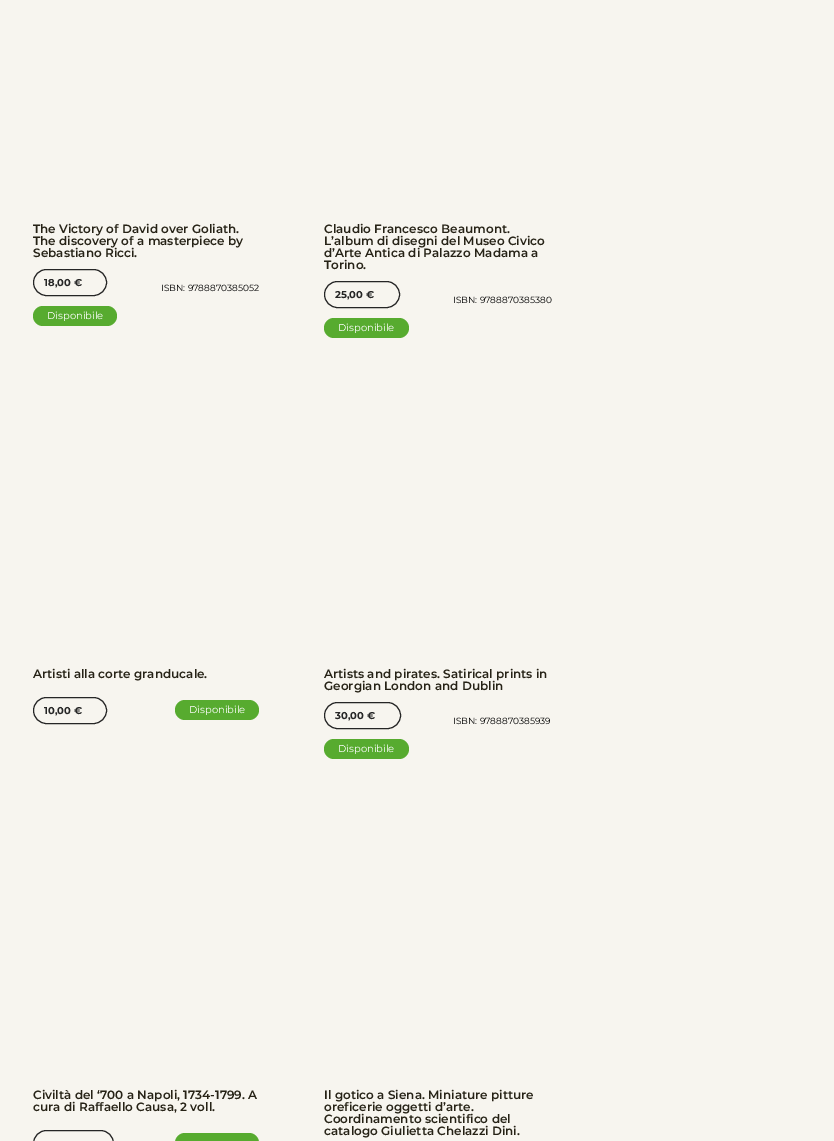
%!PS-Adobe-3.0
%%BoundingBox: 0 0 834 1141
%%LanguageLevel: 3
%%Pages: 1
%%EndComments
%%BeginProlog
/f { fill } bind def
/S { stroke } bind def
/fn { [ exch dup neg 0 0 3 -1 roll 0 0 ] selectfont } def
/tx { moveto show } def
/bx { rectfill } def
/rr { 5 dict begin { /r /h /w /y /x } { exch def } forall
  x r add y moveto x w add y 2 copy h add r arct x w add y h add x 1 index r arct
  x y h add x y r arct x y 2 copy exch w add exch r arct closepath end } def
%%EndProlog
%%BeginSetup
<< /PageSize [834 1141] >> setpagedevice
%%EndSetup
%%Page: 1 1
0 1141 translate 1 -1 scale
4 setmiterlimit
0.969 0.961 0.937 setrgbcolor
0 0 834 1141 bx
/Montserrat-SemiBold 12 fn
0.149 0.133 0.086 setrgbcolor
(The Victory of David over Goliath.) 33 233 tx
(The discovery of a masterpiece by) 33 245 tx
(Sebastiano Ricci.) 33 257 tx
0.149 setgray
33.5 269.5 73 26 13 rr S
/Montserrat-Bold 10 fn
(18,00 €) 44 286 tx
/Montserrat-Regular 9 fn
0 setgray
(ISBN: 9788870385052) 161 291 tx
0.341 0.671 0.184 setrgbcolor
33 306 84 20 10 rr f
/Montserrat-Regular 10 fn
1 setgray
(Disponibile) 47 319 tx
/Montserrat-SemiBold 12 fn
0.149 0.133 0.086 setrgbcolor
(Claudio Francesco Beaumont.) 324 233 tx
(L’album di disegni del Museo Civico) 324 245 tx
(d’Arte Antica di Palazzo Madama a) 324 257 tx
(Torino.) 324 269 tx
0.149 setgray
324.5 281.5 75 26 13 rr S
/Montserrat-Bold 10 fn
(25,00 €) 335 298 tx
/Montserrat-Regular 9 fn
0 setgray
(ISBN: 9788870385380) 453 303 tx
0.341 0.671 0.184 setrgbcolor
324 318 85 20 10 rr f
/Montserrat-Regular 10 fn
1 setgray
(Disponibile) 338 331 tx
/Montserrat-SemiBold 12 fn
0.149 0.133 0.086 setrgbcolor
(Artisti alla corte granducale.) 33 678 tx
0.149 setgray
33.5 697.5 73 26 13 rr S
/Montserrat-Bold 10 fn
(10,00 €) 44 714 tx
0.341 0.671 0.184 setrgbcolor
175 700 84 20 10 rr f
/Montserrat-Regular 10 fn
1 setgray
(Disponibile) 189 713 tx
/Montserrat-SemiBold 12 fn
0.149 0.133 0.086 setrgbcolor
(Artists and pirates. Satirical prints in) 324 678 tx
(Georgian London and Dublin) 324 690 tx
0.149 setgray
324.5 702.5 76 26 13 rr S
/Montserrat-Bold 10 fn
(30,00 €) 335 719 tx
/Montserrat-Regular 9 fn
0 setgray
(ISBN: 9788870385939) 453 724 tx
0.341 0.671 0.184 setrgbcolor
324 739 85 20 10 rr f
/Montserrat-Regular 10 fn
1 setgray
(Disponibile) 338 752 tx
/Montserrat-SemiBold 12 fn
0.149 0.133 0.086 setrgbcolor
(Civiltà del ‘700 a Napoli, 1734-1799. A) 33 1099 tx
(cura di Raffaello Causa, 2 voll.) 33 1111 tx
0.149 setgray
33.5 1130.5 80 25 13 rr S
0.341 0.671 0.184 setrgbcolor
175 1133 84 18 10 rr f
0.149 0.133 0.086 setrgbcolor
(Il gotico a Siena. Miniature pitture) 324 1099 tx
(oreficerie oggetti d’arte.) 324 1111 tx
(Coordinamento scientifico del) 324 1123 tx
(catalogo Giulietta Chelazzi Dini.) 324 1135 tx
showpage
%%EOF
